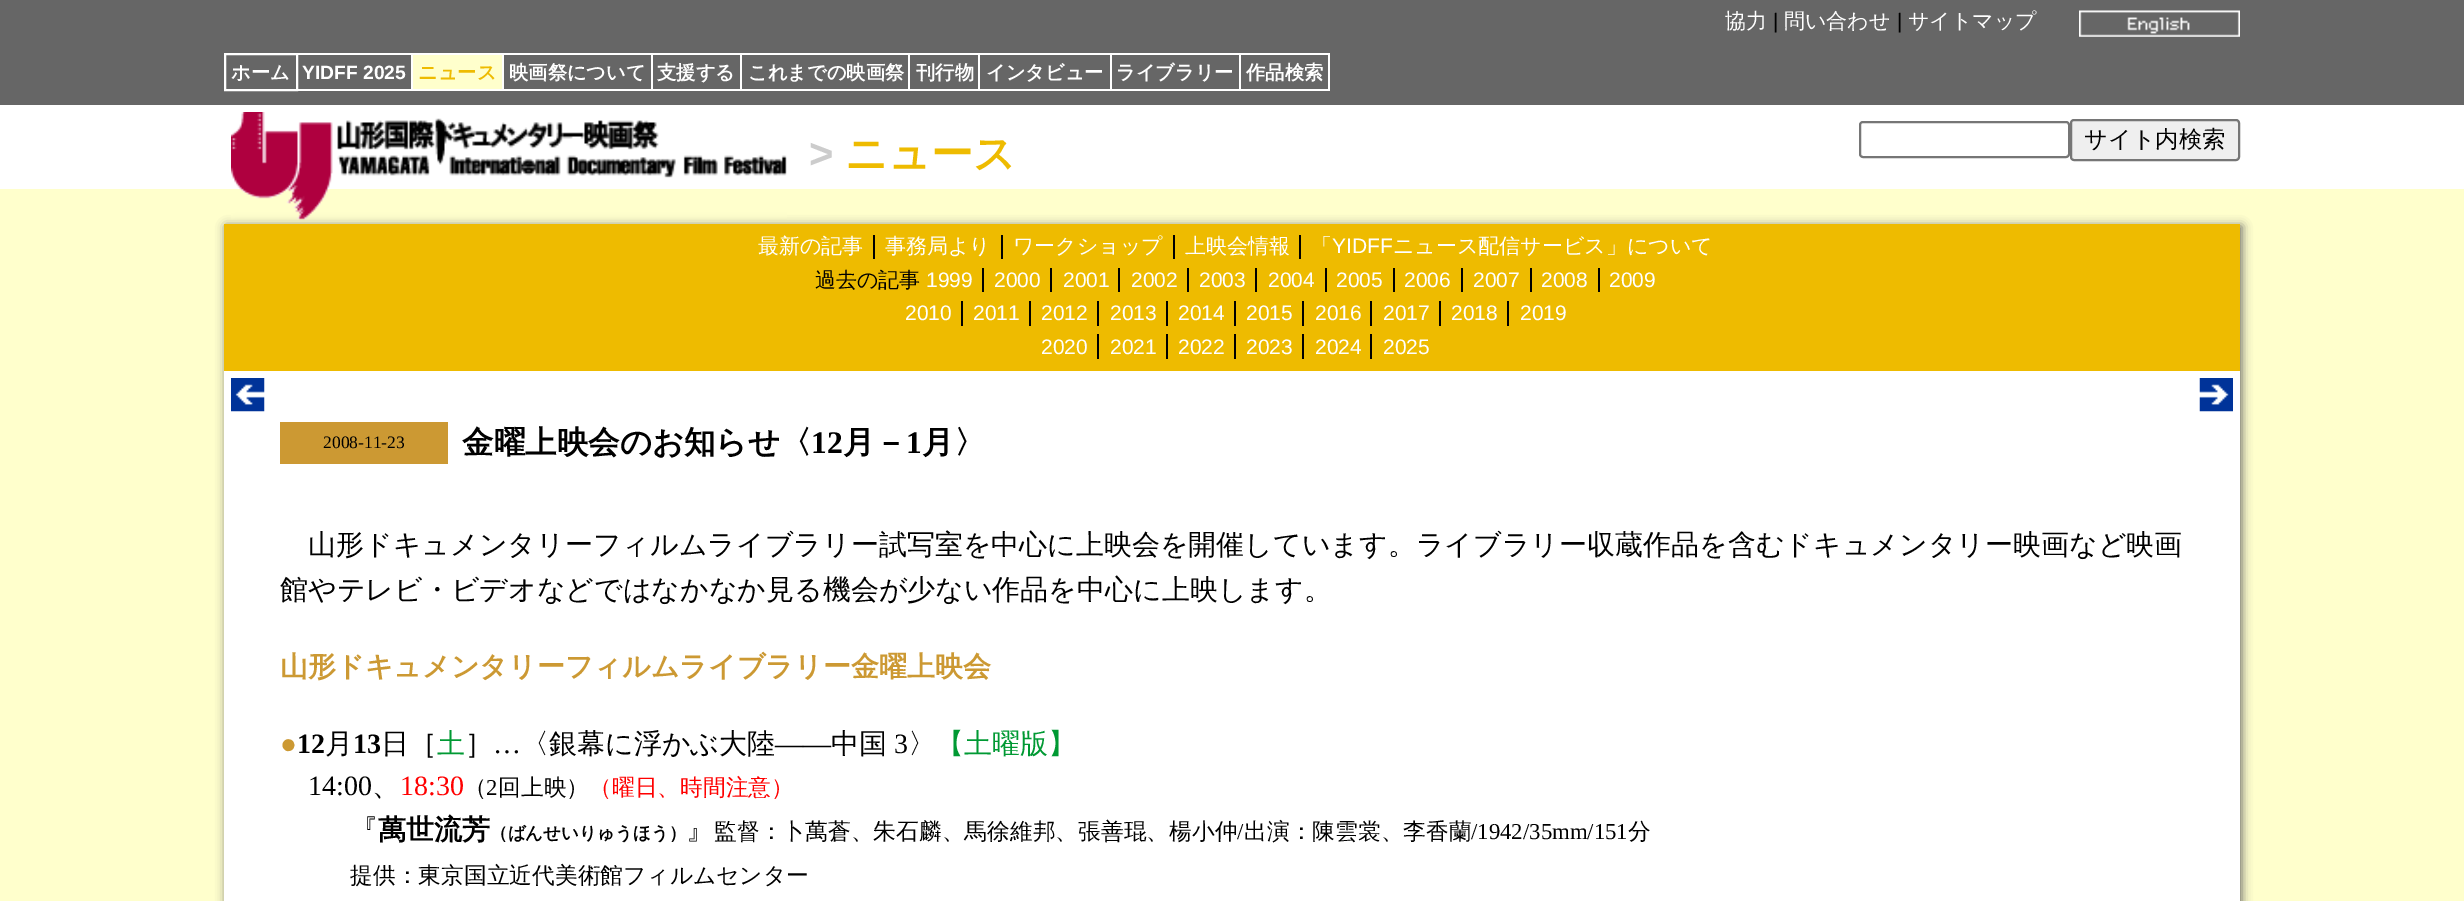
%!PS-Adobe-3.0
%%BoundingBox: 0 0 2464 901
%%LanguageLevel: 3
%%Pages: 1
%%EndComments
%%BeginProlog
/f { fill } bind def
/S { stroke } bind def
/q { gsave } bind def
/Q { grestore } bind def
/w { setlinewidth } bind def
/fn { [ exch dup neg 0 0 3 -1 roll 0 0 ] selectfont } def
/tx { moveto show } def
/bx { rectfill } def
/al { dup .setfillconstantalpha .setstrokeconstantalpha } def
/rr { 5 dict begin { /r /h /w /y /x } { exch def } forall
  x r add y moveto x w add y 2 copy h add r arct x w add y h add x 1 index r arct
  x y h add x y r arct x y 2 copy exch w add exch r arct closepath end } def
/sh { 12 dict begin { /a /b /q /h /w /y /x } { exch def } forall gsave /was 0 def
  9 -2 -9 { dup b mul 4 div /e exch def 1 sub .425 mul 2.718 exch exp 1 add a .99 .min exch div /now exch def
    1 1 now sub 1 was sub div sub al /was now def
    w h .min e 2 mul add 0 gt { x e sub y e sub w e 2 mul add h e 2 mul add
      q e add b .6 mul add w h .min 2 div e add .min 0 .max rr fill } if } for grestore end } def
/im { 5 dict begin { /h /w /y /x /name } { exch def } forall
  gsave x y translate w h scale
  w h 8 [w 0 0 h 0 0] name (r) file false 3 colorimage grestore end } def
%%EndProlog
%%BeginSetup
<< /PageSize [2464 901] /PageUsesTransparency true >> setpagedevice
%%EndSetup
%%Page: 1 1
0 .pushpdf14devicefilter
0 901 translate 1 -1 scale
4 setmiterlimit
1 1 0.8 setrgbcolor
0 0 2464 901 bx
0.4 setgray
0 0 2464 105 bx
/WenQuanYiZenHei-Medium 21 fn
1 setgray
(協力) 1725 28 tx
/LiberationSans-Regular 21 fn
0 setgray
(|) 1773 28 tx
/WenQuanYiZenHei-Medium 21 fn
1 setgray
(問い合わせ) 1784 28 tx
/LiberationSans-Regular 21 fn
0 setgray
(|) 1897 28 tx
/WenQuanYiZenHei-Medium 21 fn
1 setgray
(サイトマップ) 1908 28 tx
(image0.raw) 2079 10 161 27 im
2 w
225 54 72 36 rectstroke
/WenQuanYiZenHei-Bold 19.25 fn
(ホーム) 231 79 tx
/LiberationSans-Bold 19.25 fn
(YIDFF 2025) 302 79 tx
298 53 813 2 bx
411 53 2 38 bx
298 89 115 2 bx
1 1 0.8 setrgbcolor
413 55 89 34 bx
/WenQuanYiZenHei-Bold 19.25 fn
0.933 0.733 0 setrgbcolor
(ニュース) 418 79 tx
1 setgray
502 53 2 38 bx
413 89 91 2 bx
(映画祭について) 509 79 tx
651 53 2 38 bx
504 89 149 2 bx
(支援する) 657 79 tx
740 53 2 38 bx
653 89 89 2 bx
(これまでの映画祭) 748 79 tx
908 53 2 38 bx
742 89 168 2 bx
(刊行物) 916 79 tx
978 53 2 38 bx
910 89 70 2 bx
(インタビュー) 986 79 tx
1110 53 2 38 bx
980 89 131 2 bx
(ライブラリー) 1116 79 tx
1111 53 219 2 bx
1239 53 2 38 bx
1111 89 130 2 bx
(作品検索) 1246 79 tx
1328 53 2 38 bx
1241 89 89 2 bx
0 105 2464 84 bx
0.4 setgray
226 226 2016 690 0 5 1 sh
(image1.raw) 231 112 556 108 im
/LiberationSans-Bold 42 fn
0.8 setgray
(>) 809 168 tx
/WenQuanYiZenHei-Bold 42 fn
0.933 0.733 0 setrgbcolor
(ニュース) 845 168 tx
0.463 setgray
1860 122 209 35 3 rr S
0.937 setgray
2071 120 168 40 3 rr q f Q
0.463 setgray
S
/WenQuanYiZenHei-Medium 23.25 fn
0 setgray
(サイト内検索) 2084 147 tx
0.933 0.733 0 setrgbcolor
224 224 2016 147 bx
/WenQuanYiZenHei-Medium 21 fn
1 setgray
(最新の記事) 758 253 tx
(事務局より) 885 253 tx
0 setgray
873 235 2 24 bx
1 setgray
(ワークショップ) 1013 253 tx
0 setgray
1001 235 2 24 bx
1 setgray
(上映会情報) 1185 253 tx
0 setgray
1173 235 2 24 bx
1 setgray
(「) 1311 253 tx
0 setgray
1299 235 2 24 bx
/LiberationSans-Regular 21 fn
1 setgray
(YIDFF) 1332 253 tx
/WenQuanYiZenHei-Medium 21 fn
(ニュース配信サービス」について) 1393 253 tx
0 setgray
(過去の記事) 815 287 tx
/LiberationSans-Regular 21 fn
1 setgray
(1999) 926 287 tx
(2000) 994 287 tx
0 setgray
982 268 2 24 bx
1 setgray
(2001) 1063 287 tx
0 setgray
1050 268 2 24 bx
1 setgray
(2002) 1131 287 tx
0 setgray
1118 268 2 24 bx
1 setgray
(2003) 1199 287 tx
0 setgray
1187 268 2 24 bx
1 setgray
(2004) 1268 287 tx
0 setgray
1255 268 2 24 bx
1 setgray
(2005) 1336 287 tx
0 setgray
1325 268 2 24 bx
1 setgray
(2006) 1404 287 tx
0 setgray
1393 268 2 24 bx
1 setgray
(2007) 1473 287 tx
0 setgray
1461 268 2 24 bx
1 setgray
(2008) 1541 287 tx
0 setgray
1530 268 2 24 bx
1 setgray
(2009) 1609 287 tx
0 setgray
1598 268 2 24 bx
1 setgray
(2010) 905 320 tx
(2011) 973 320 tx
0 setgray
961 301 2 25 bx
1 setgray
(2012) 1041 320 tx
0 setgray
1029 301 2 25 bx
1 setgray
(2013) 1110 320 tx
0 setgray
1097 301 2 25 bx
1 setgray
(2014) 1178 320 tx
0 setgray
1166 301 2 25 bx
1 setgray
(2015) 1246 320 tx
0 setgray
1234 301 2 25 bx
1 setgray
(2016) 1315 320 tx
0 setgray
1302 301 2 25 bx
1 setgray
(2017) 1383 320 tx
0 setgray
1370 301 2 25 bx
1 setgray
(2018) 1451 320 tx
0 setgray
1439 301 2 25 bx
1 setgray
(2019) 1520 320 tx
0 setgray
1507 301 2 25 bx
1 setgray
(2020) 1041 354 tx
(2021) 1110 354 tx
0 setgray
1097 334 2 25 bx
1 setgray
(2022) 1178 354 tx
0 setgray
1166 334 2 25 bx
1 setgray
(2023) 1246 354 tx
0 setgray
1234 334 2 25 bx
1 setgray
(2024) 1315 354 tx
0 setgray
1302 334 2 25 bx
1 setgray
(2025) 1383 354 tx
0 setgray
1370 334 2 25 bx
1 setgray
224 371 2016 530 bx
(image2.raw) 231 378 34 34 im
(image3.raw) 2199 378 34 34 im
0.8 0.6 0.2 setrgbcolor
280 422 168 42 bx
/LiberationSerif-Regular 17.5 fn
0 setgray
(2008-11-23) 323 448 tx
/WenQuanYiZenHei-Bold 31.5 fn
(金曜上映会のお知らせ〈) 462 453 tx
/LiberationSerif-Bold 31.5 fn
(12) 811 453 tx
/WenQuanYiZenHei-Bold 31.5 fn
(月－) 843 453 tx
/LiberationSerif-Bold 31.5 fn
(1) 906 453 tx
/WenQuanYiZenHei-Bold 31.5 fn
(月〉) 922 453 tx
/WenQuanYiZenHei-Medium 28 fn
(山形ドキュメンタリーフィルムライブラリー試写室を中心に上映会を開催しています。ライブラリー収蔵作品を含むドキュメンタリー映画など映画) 308 554 tx
(館やテレビ・ビデオなどではなかなか見る機会が少ない作品を中心に上映します。) 280 599 tx
/WenQuanYiZenHei-Bold 28 fn
0.8 0.6 0.2 setrgbcolor
(山形ドキュメンタリーフィルムライブラリー金曜上映会) 280 676 tx
/LiberationSerif-Regular 28 fn
(●) 280 753 tx
/LiberationSerif-Bold 28 fn
0 setgray
(12) 297 753 tx
/WenQuanYiZenHei-Medium 28 fn
(月) 325 753 tx
/LiberationSerif-Bold 28 fn
(13) 353 753 tx
/WenQuanYiZenHei-Medium 28 fn
(日［) 381 753 tx
0 0.6 0.2 setrgbcolor
(土) 437 753 tx
0 setgray
(］) 465 753 tx
(〈銀幕に浮かぶ大陸) 521 753 tx
/LiberationSerif-Regular 28 fn
(――) 775 753 tx
/WenQuanYiZenHei-Medium 28 fn
(中国) 831 753 tx
/LiberationSerif-Regular 28 fn
(3) 894 753 tx
/WenQuanYiZenHei-Medium 28 fn
(〉) 908 753 tx
0 0.6 0.2 setrgbcolor
(【土曜版】) 936 753 tx
/LiberationSerif-Regular 28 fn
0 setgray
(…) 493 753 tx
(14:00) 308 795 tx
/WenQuanYiZenHei-Medium 28 fn
(、) 372 795 tx
/LiberationSerif-Regular 28 fn
1 0 0 setrgbcolor
(18:30) 400 795 tx
/WenQuanYiZenHei-Medium 22.75 fn
0 setgray
(（) 464 795 tx
/LiberationSerif-Regular 22.75 fn
(2) 486 795 tx
/WenQuanYiZenHei-Medium 22.75 fn
(回上映）) 498 795 tx
1 0 0 setrgbcolor
(（曜日、時間注意）) 589 795 tx
/WenQuanYiZenHei-Medium 28 fn
0 setgray
(『) 350 839 tx
/WenQuanYiZenHei-Bold 28 fn
(萬世流芳) 378 839 tx
/WenQuanYiZenHei-Bold 17.5 fn
(（ばんせいりゅうほう）) 490 839 tx
/WenQuanYiZenHei-Medium 28 fn
(』) 686 839 tx
/WenQuanYiZenHei-Medium 22.75 fn
(監督：卜萬蒼、朱石麟、馬徐維邦、張善琨、楊小仲) 714 839 tx
/LiberationSerif-Regular 22.75 fn
(/) 1237 839 tx
/WenQuanYiZenHei-Medium 22.75 fn
(出演：陳雲裳、李香蘭) 1244 839 tx
/LiberationSerif-Regular 22.75 fn
(/1942/35mm/151) 1471 839 tx
/WenQuanYiZenHei-Medium 22.75 fn
(分) 1628 839 tx
(提供：東京国立近代美術館フィルムセンター) 350 883 tx
.poppdf14devicefilter showpage
%%EOF
